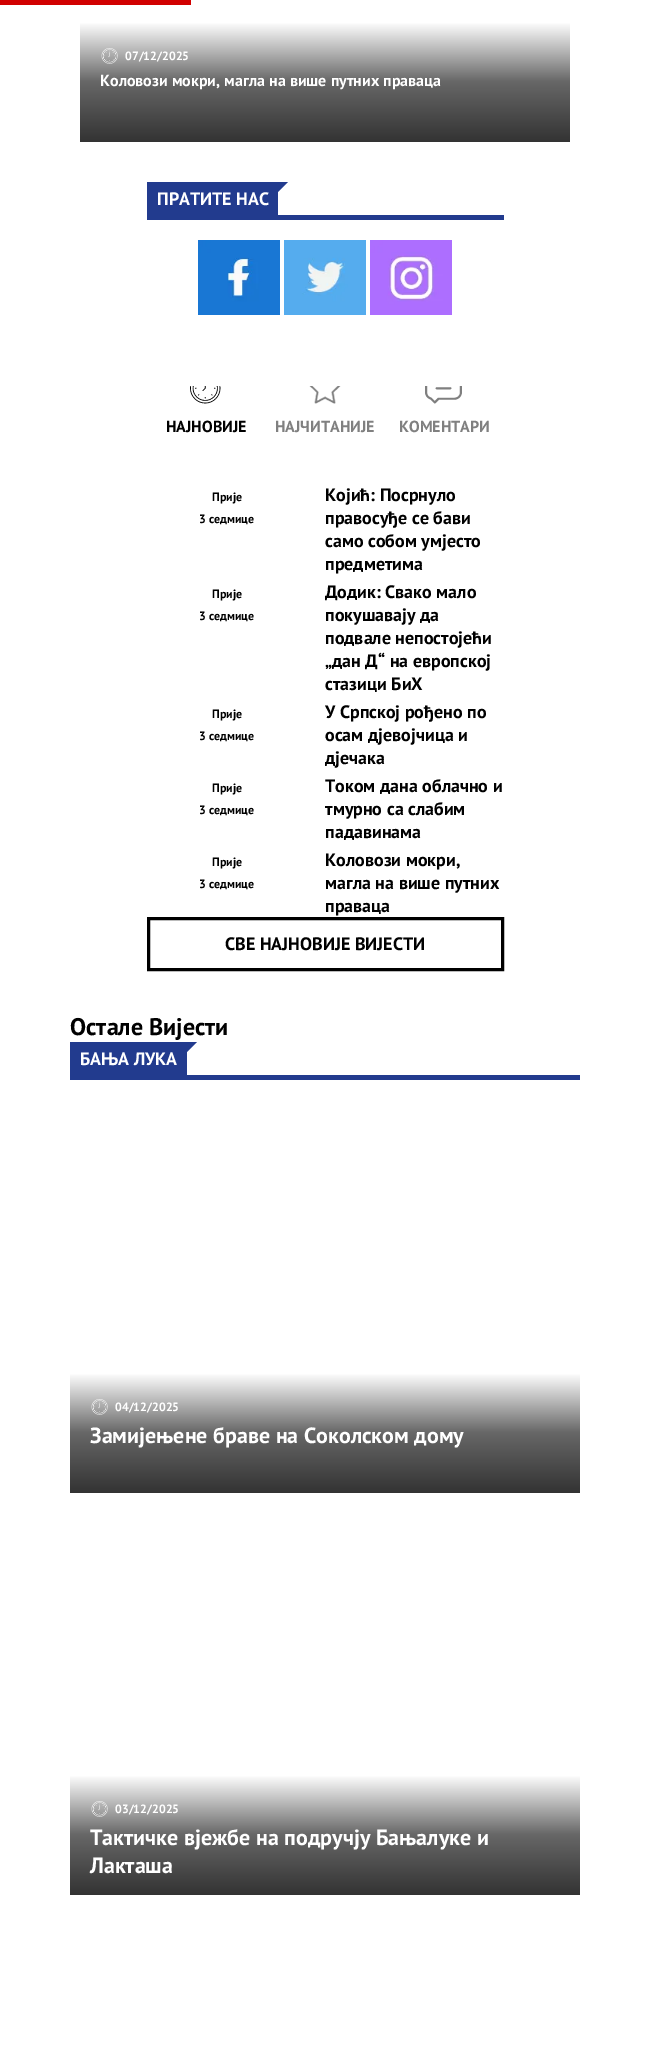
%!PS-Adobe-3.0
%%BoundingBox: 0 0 650 2066
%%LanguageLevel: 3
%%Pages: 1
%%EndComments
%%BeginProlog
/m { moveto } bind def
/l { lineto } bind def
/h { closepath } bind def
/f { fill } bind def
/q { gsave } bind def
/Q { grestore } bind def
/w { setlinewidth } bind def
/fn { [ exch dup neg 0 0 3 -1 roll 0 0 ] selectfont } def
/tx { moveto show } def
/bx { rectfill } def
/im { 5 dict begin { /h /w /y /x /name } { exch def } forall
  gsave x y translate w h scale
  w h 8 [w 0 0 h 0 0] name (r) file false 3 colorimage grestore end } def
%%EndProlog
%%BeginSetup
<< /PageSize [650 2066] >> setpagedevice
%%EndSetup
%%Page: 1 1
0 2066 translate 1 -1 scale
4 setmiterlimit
1 setgray
0 0 650 2066 bx
0.82 0 0 setrgbcolor
0 0 191 5 bx
q 80 23 m 570 23 l 570 142 l 80 142 l h clip newpath
<< /ShadingType 2 /ColorSpace /DeviceRGB /Coords [325 142 325 22] /Extend [true true] /Function << /FunctionType 3 /Domain [0 1] /Functions [<< /FunctionType 2 /Domain [0 1] /C0 [0.2 0.2 0.2] /C1 [0.4 0.4 0.4] /N 1 >> << /FunctionType 2 /Domain [0 1] /C0 [0.4 0.4 0.4] /C1 [1 1 1] /N 1 >>] /Bounds [0.5] /Encode [0 1 0 1] >> >> shfill Q
(image0.raw) 101 48 17 16 im
/PTSans-Bold 12 fn
1 setgray
(07/12/2025) 125 60 tx
/PTSans-Bold 16 fn
(Коловози мокри, магла на више путних праваца) 100 86 tx
0.133 0.231 0.557 setrgbcolor
147 215 357 5 bx
147 182 131 33 bx
278 192 m 278 182 l 288 182 l h f
/PTSans-Bold 18 fn
1 setgray
(ПРАТИТЕ НАС) 157 205 tx
(image1.raw) 198 240 82 75 im
(image2.raw) 284 240 82 75 im
(image3.raw) 370 240 82 75 im
(image4.raw) 190 386 31 18 im
/PTSans-Bold 16 fn
0 setgray
(НАЈНОВИЈЕ) 166 432 tx
(image5.raw) 309 386 32 18 im
0.502 setgray
(НАЈЧИТАНИЈЕ) 275 432 tx
(image6.raw) 425 386 37 18 im
(КОМЕНТАРИ) 399 432 tx
/PTSans-Bold 12 fn
0 setgray
(Прије) 212 501 tx
(3 седмице) 199 523 tx
/PTSans-Bold 18 fn
(Којић: Посрнуло) 325 501 tx
(правосуђе се бави) 325 524 tx
(само собом умјесто) 325 547 tx
(предметима) 325 570 tx
/PTSans-Bold 12 fn
(Прије) 212 598 tx
(3 седмице) 199 620 tx
/PTSans-Bold 18 fn
(Додик: Свако мало) 325 598 tx
(покушавају да) 325 621 tx
(подвале непостојећи) 325 644 tx
(„дан Д“ на европској) 325 667 tx
(стазици БиХ) 325 690 tx
/PTSans-Bold 12 fn
(Прије) 212 718 tx
(3 седмице) 199 740 tx
/PTSans-Bold 18 fn
(У Српској рођено по) 325 718 tx
(осам дјевојчица и) 325 741 tx
(дјечака) 325 764 tx
/PTSans-Bold 12 fn
(Прије) 212 792 tx
(3 седмице) 199 814 tx
/PTSans-Bold 18 fn
(Током дана облачно и) 325 792 tx
(тмурно са слабим) 325 815 tx
(падавинама) 325 838 tx
/PTSans-Bold 12 fn
(Прије) 212 866 tx
(3 седмице) 199 888 tx
/PTSans-Bold 18 fn
(Коловози мокри,) 325 866 tx
(магла на више путних) 325 889 tx
(праваца) 325 912 tx
3 w
148.5 918.5 354 51 rectstroke
(СВЕ НАЈНОВИЈЕ ВИЈЕСТИ) 225 950 tx
/PTSans-Bold 24 fn
(Остале Вијести) 70 1035 tx
0.133 0.231 0.557 setrgbcolor
70 1075 510 5 bx
70 1042 117 33 bx
187 1052 m 187 1042 l 197 1042 l h f
/PTSans-Bold 18 fn
1 setgray
(БАЊА ЛУКА) 80 1065 tx
q 70 1374 m 580 1374 l 580 1493 l 70 1493 l h clip newpath
<< /ShadingType 2 /ColorSpace /DeviceRGB /Coords [325 1493 325 1373] /Extend [true true] /Function << /FunctionType 3 /Domain [0 1] /Functions [<< /FunctionType 2 /Domain [0 1] /C0 [0.2 0.2 0.2] /C1 [0.4 0.4 0.4] /N 1 >> << /FunctionType 2 /Domain [0 1] /C0 [0.4 0.4 0.4] /C1 [1 1 1] /N 1 >>] /Bounds [0.5] /Encode [0 1 0 1] >> >> shfill Q
(image0.raw) 91 1399 17 16 im
/PTSans-Bold 12 fn
(04/12/2025) 115 1411 tx
/PTSans-Bold 22 fn
(Замијењене браве на Соколском дому) 90 1443 tx
q 70 1776 m 580 1776 l 580 1895 l 70 1895 l h clip newpath
<< /ShadingType 2 /ColorSpace /DeviceRGB /Coords [325 1895 325 1775] /Extend [true true] /Function << /FunctionType 3 /Domain [0 1] /Functions [<< /FunctionType 2 /Domain [0 1] /C0 [0.2 0.2 0.2] /C1 [0.4 0.4 0.4] /N 1 >> << /FunctionType 2 /Domain [0 1] /C0 [0.4 0.4 0.4] /C1 [1 1 1] /N 1 >>] /Bounds [0.5] /Encode [0 1 0 1] >> >> shfill Q
(image0.raw) 91 1801 17 16 im
/PTSans-Bold 12 fn
(03/12/2025) 115 1813 tx
/PTSans-Bold 22 fn
(Тактичке вјежбе на подручју Бањалуке и) 90 1845 tx
(Лакташа) 90 1873 tx
showpage
%%EOF
